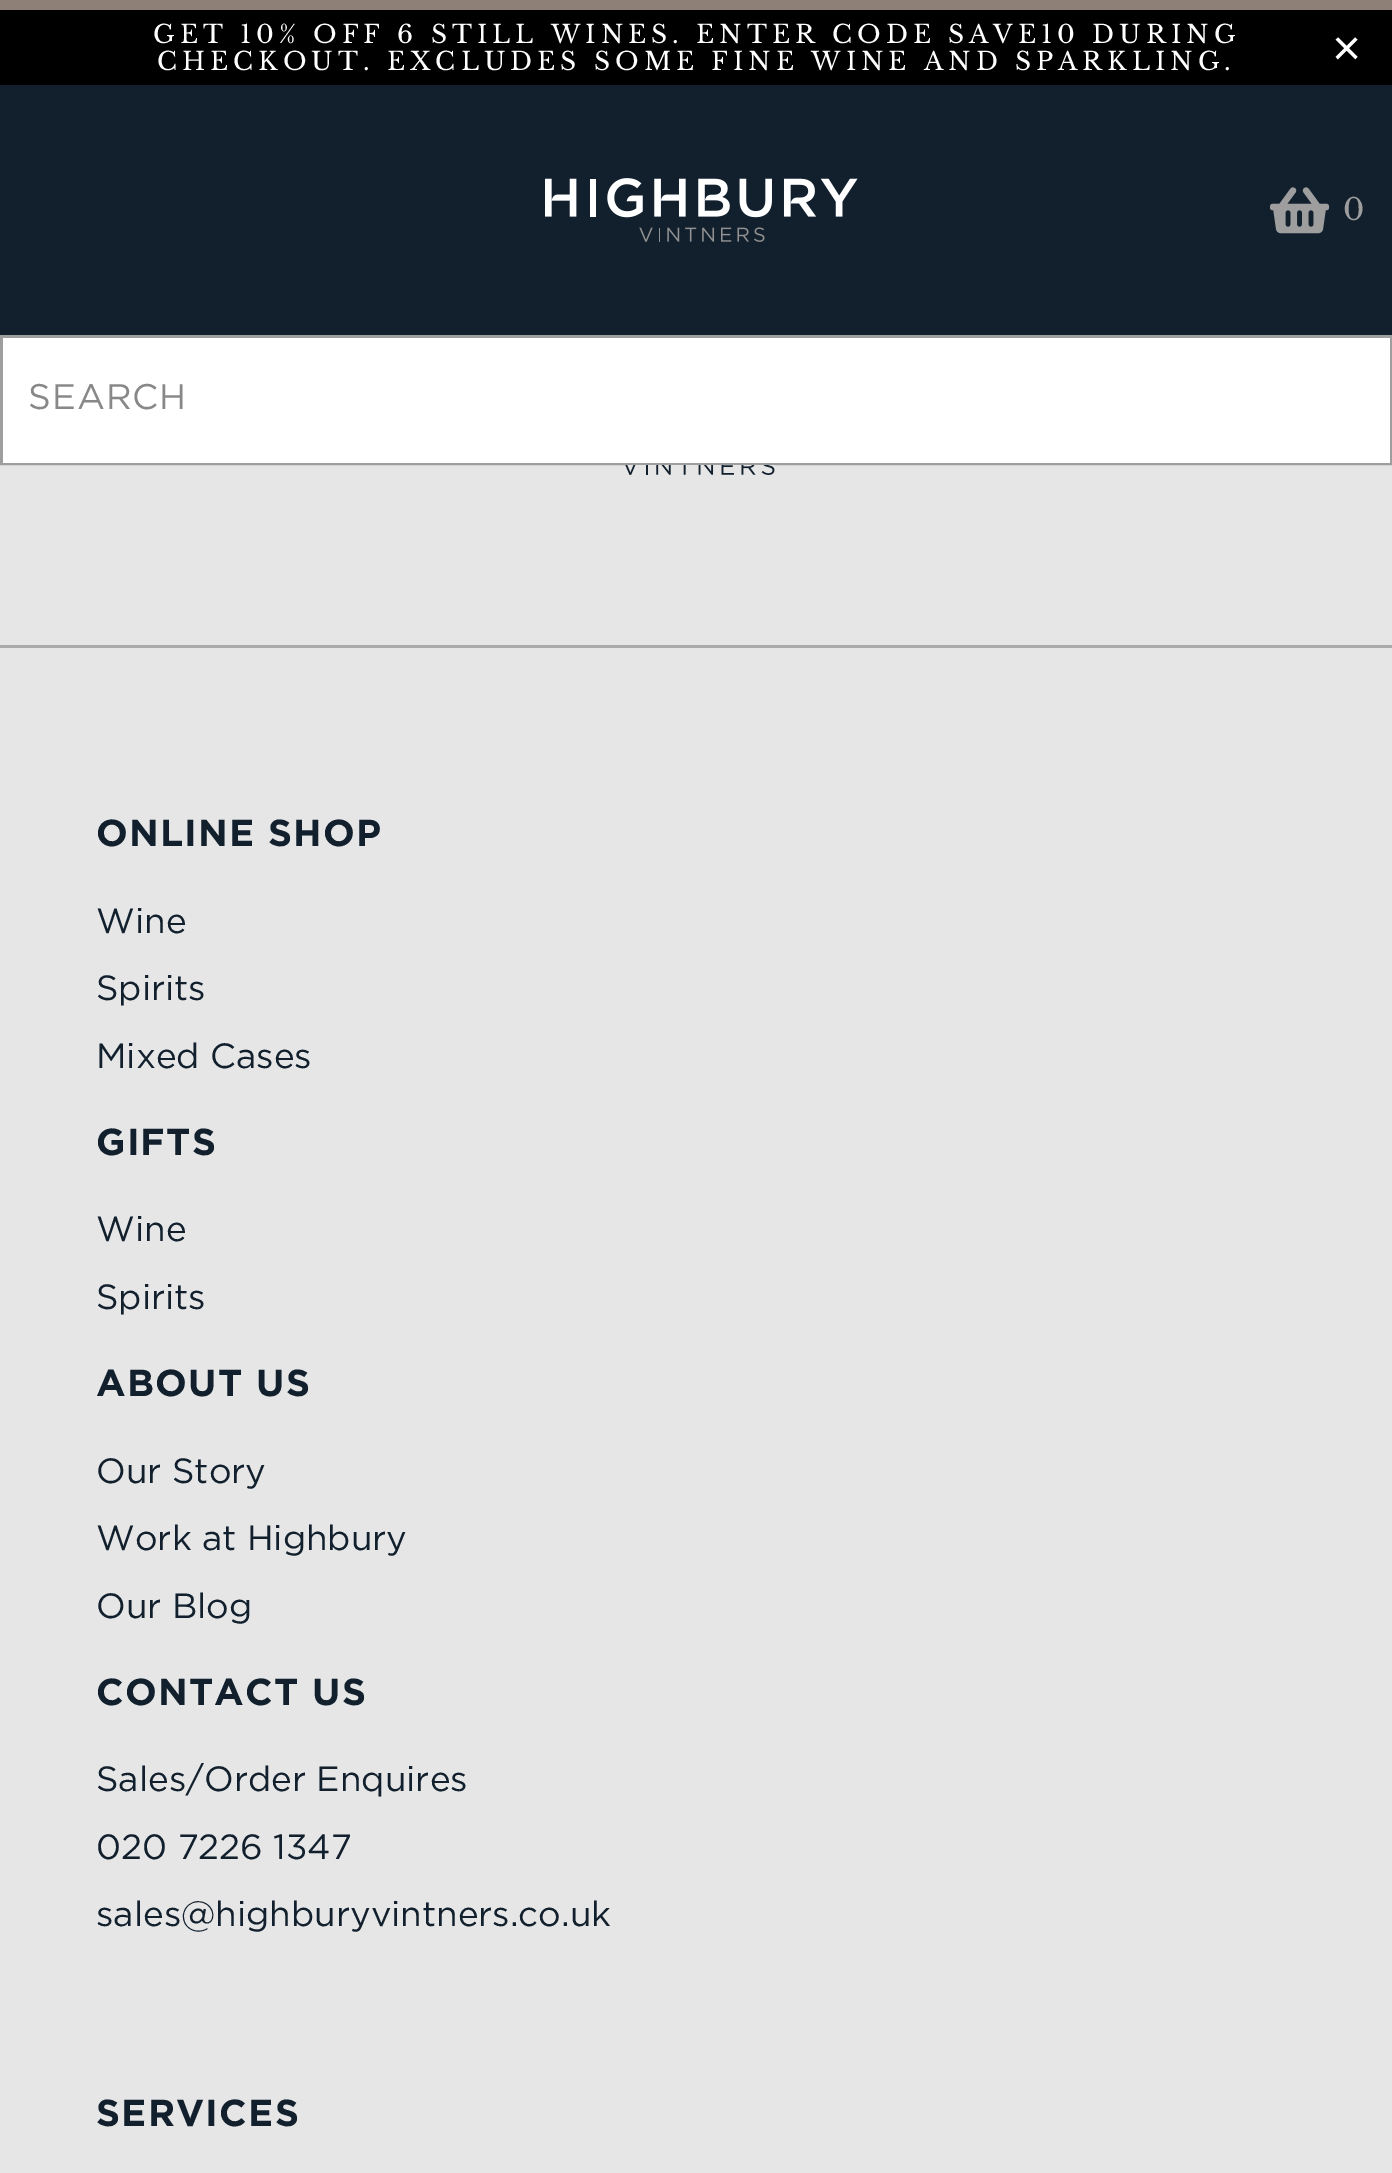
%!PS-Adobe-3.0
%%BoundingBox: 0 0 1392 2173
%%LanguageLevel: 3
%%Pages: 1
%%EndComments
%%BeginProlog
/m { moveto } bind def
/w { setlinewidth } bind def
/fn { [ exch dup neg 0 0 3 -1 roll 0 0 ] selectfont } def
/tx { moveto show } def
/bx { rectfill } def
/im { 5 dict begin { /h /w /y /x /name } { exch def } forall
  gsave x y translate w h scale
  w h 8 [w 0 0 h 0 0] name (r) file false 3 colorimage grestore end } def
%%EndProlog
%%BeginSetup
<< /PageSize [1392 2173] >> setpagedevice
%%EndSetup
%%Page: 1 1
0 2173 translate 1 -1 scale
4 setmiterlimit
0.902 setgray
0 0 1392 2173 bx
0.557 0.502 0.463 setrgbcolor
0 0 1392 10 bx
0 setgray
0 10 1392 75 bx
/LibreBaskerville-Regular 25 fn
1 setgray
153 43 m 5 0 (GET 10% OFF 6 STILL WINES. ENTER CODE SAVE10 DURING) ashow
157 70 m 5 0 (CHECKOUT. EXCLUDES SOME FINE WINE AND SPARKLING.) ashow
/LiberationSans-Regular 50 fn
1332 65 m 5 0 (×) ashow
0.071 0.125 0.18 setrgbcolor
0 85 1392 250 bx
(image0.raw) 545 178 313 64 im
(image1.raw) 1270 187 60 47 im
/LibreBaskerville-Regular 30 fn
0.62 setgray
1343 220 m 2 0 (0) ashow
3 w
1.5 336.5 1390 127 rectstroke
1 setgray
3 338 1387 125 bx
/Gotham-Regular 35.5 fn
0.533 setgray
28 409 m 1 0 (SEARCH) ashow
0.671 setgray
0 645 1392 3 bx
(image2.raw) 625 465 150 10 im
/Gotham-Bold 37.5 fn
0.071 0.125 0.18 setrgbcolor
96 846 m 1.25 0 (ONLINE SHOP) ashow
/Gotham-Regular 35 fn
(Wine) 96 933 tx
(Spirits) 96 1000 tx
(Mixed Cases) 96 1068 tx
/Gotham-Bold 37.5 fn
96 1155 m 1.25 0 (GIFTS) ashow
/Gotham-Regular 35 fn
(Wine) 96 1241 tx
(Spirits) 96 1309 tx
/Gotham-Bold 37.5 fn
96 1396 m 1.25 0 (ABOUT US) ashow
/Gotham-Regular 35 fn
(Our Story) 96 1483 tx
(Work at Highbury) 96 1550 tx
(Our Blog) 96 1618 tx
/Gotham-Bold 37.5 fn
96 1705 m 1.25 0 (CONTACT US) ashow
/Gotham-Regular 35 fn
(Sales/Order Enquires) 96 1791 tx
(020 7226 1347) 96 1859 tx
(sales@highburyvintners.co.uk) 96 1926 tx
/Gotham-Bold 37.5 fn
96 2126 m 1.25 0 (SERVICES) ashow
showpage
%%EOF
